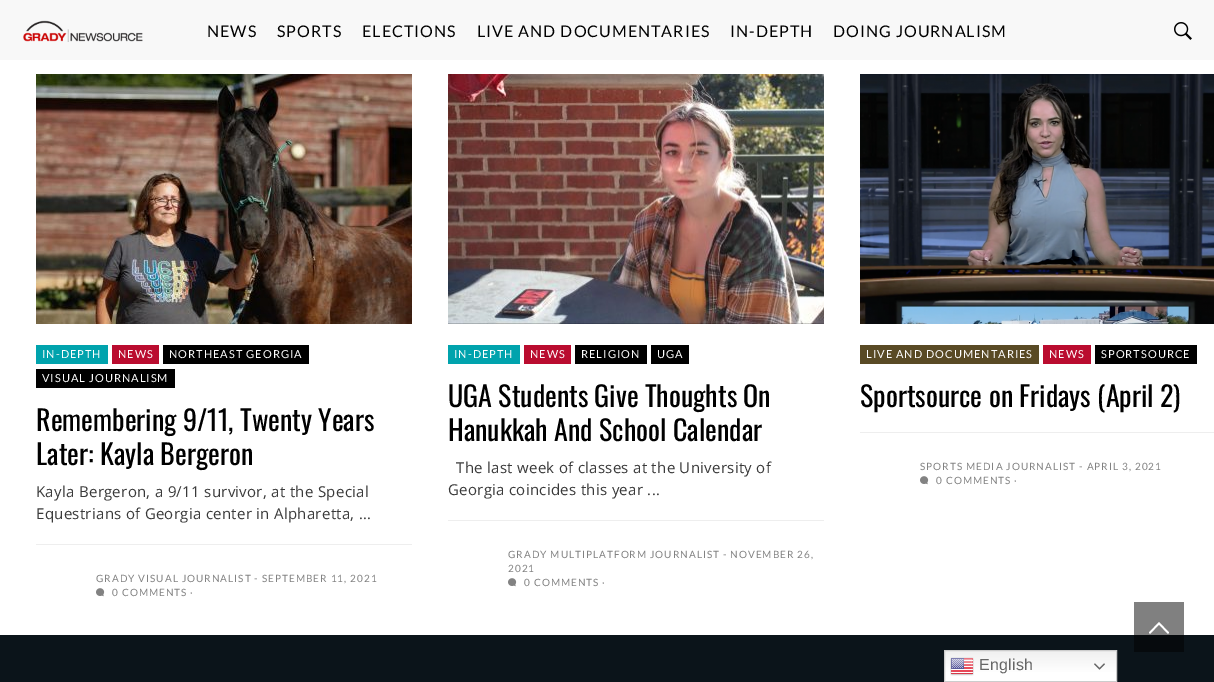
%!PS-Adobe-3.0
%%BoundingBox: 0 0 1214 682
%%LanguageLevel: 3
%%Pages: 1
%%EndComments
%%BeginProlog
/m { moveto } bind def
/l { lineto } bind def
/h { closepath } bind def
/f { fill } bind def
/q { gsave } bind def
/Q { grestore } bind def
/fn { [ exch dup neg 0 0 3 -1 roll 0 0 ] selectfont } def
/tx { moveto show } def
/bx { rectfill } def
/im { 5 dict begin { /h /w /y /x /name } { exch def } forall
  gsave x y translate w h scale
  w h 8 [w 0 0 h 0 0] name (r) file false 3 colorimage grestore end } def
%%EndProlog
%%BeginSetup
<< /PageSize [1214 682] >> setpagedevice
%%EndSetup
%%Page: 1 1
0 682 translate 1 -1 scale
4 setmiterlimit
1 setgray
0 0 1214 682 bx
0.502 setgray
1134 602 50 33 bx
0.973 setgray
0 0 1214 60 bx
(image0.raw) 23 20 120 22 im
/Lato-Regular 16 fn
0 setgray
207 37 m 1 0 (NEWS) ashow
277 37 m 1 0 (SPORTS) ashow
362 37 m 1 0 (ELECTIONS) ashow
477 37 m 1 0 (LIVE AND DOCUMENTARIES) ashow
730 37 m 1 0 (IN-DEPTH) ashow
833 37 m 1 0 (DOING JOURNALISM) ashow
(image1.raw) 1174 22 18 18 im
(image2.raw) 36 74 376 250 im
0 0.639 0.678 setrgbcolor
36 345 72 19 bx
/Lato-Regular 11 fn
1 setgray
42 358 m 1 0 (IN-DEPTH) ashow
0.729 0.047 0.184 setrgbcolor
112 345 47 19 bx
1 setgray
118 358 m 1 0 (NEWS) ashow
0 setgray
163 345 146 19 bx
1 setgray
169 358 m 1 0 (NORTHEAST GEORGIA) ashow
0 setgray
36 369 139 19 bx
1 setgray
42 382 m 1 0 (VISUAL JOURNALISM) ashow
/Oswald-Regular 28 fn
0 setgray
(Remembering 9/11, Twenty Years) 36 431 tx
(Later: Kayla Bergeron) 36 465 tx
/OpenSans-Regular 15 fn
0.227 setgray
36 497 m 0.3 0 (Kayla Bergeron, a 9/11 survivor, at the Special) ashow
36 519 m 0.3 0 (Equestrians of Georgia center in Alpharetta, ...) ashow
0.933 setgray
36 544 376 1 bx
/Lato-Regular 10 fn
0.51 setgray
96 582 m 1 0 (GRADY VISUAL JOURNALIST - SEPTEMBER 11, 2021) ashow
(image3.raw) 96 588 9 9 im
112 596 m 1 0 (0 COMMENTS ·) ashow
(image4.raw) 448 74 376 250 im
0 0.639 0.678 setrgbcolor
448 345 72 19 bx
/Lato-Regular 11 fn
1 setgray
454 358 m 1 0 (IN-DEPTH) ashow
0.729 0.047 0.184 setrgbcolor
524 345 47 19 bx
1 setgray
530 358 m 1 0 (NEWS) ashow
0 setgray
575 345 72 19 bx
1 setgray
581 358 m 1 0 (RELIGION) ashow
0 setgray
651 345 38 19 bx
1 setgray
657 358 m 1 0 (UGA) ashow
/Oswald-Regular 28 fn
0 setgray
(UGA Students Give Thoughts On) 448 407 tx
(Hanukkah And School Calendar) 448 441 tx
/OpenSans-Regular 15 fn
0.227 setgray
456 473 m 0.3 0 (The last week of classes at the University of) ashow
448 495 m 0.3 0 (Georgia coincides this year ...) ashow
0.933 setgray
448 520 376 1 bx
/Lato-Regular 10 fn
0.51 setgray
508 558 m 1 0 (GRADY MULTIPLATFORM JOURNALIST - NOVEMBER 26,) ashow
508 572 m 1 0 (2021) ashow
(image3.raw) 508 578 9 9 im
524 586 m 1 0 (0 COMMENTS ·) ashow
(image5.raw) 860 74 354 250 im
0.349 0.29 0.145 setrgbcolor
860 345 179 19 bx
/Lato-Regular 11 fn
1 setgray
866 358 m 1 0 (LIVE AND DOCUMENTARIES) ashow
0.729 0.047 0.184 setrgbcolor
1043 345 48 19 bx
1 setgray
1049 358 m 1 0 (NEWS) ashow
0 setgray
1095 345 102 19 bx
1 setgray
1101 358 m 1 0 (SPORTSOURCE) ashow
/Oswald-Regular 28 fn
0 setgray
(Sportsource on Fridays \(April 2\)) 860 407 tx
0.933 setgray
860 432 354 1 bx
/Lato-Regular 10 fn
0.51 setgray
920 470 m 1 0 (SPORTS MEDIA JOURNALIST - APRIL 3, 2021) ashow
(image3.raw) 920 476 9 9 im
936 484 m 1 0 (0 COMMENTS ·) ashow
1 setgray
1168 634 m 1159 624.5 l 1150 634 l 1149 632.5 l 1159 622 l 1169 632.5 l h f
0.043 0.078 0.102 setrgbcolor
0 635 1214 47 bx
0.024 0.039 0.051 setrgbcolor
1134 635 50 17 bx
q 945 651 m 1116 651 l 1116 681 l 945 681 l h clip newpath
<< /ShadingType 2 /ColorSpace /DeviceRGB /Coords [1031 650 1031 682] /Extend [true true] /Function << /FunctionType 3 /Domain [0 1] /Functions [<< /FunctionType 2 /Domain [0 1] /C0 [0.937 0.937 0.937] /C1 [1 1 1] /N 1 >> << /FunctionType 2 /Domain [0 1] /C0 [1 1 1] /C1 [1 1 1] /N 1 >>] /Bounds [0.7] /Encode [0 1 0 1] >> >> shfill Q
0.8 setgray
944.5 650.5 172 31 rectstroke
(image6.raw) 950 657 24 19 im
/LiberationSans-Regular 16 fn
0.4 setgray
979 670 m 0.3 0 (English) ashow
(image7.raw) 1094 663 11 7 im
showpage
%%EOF
